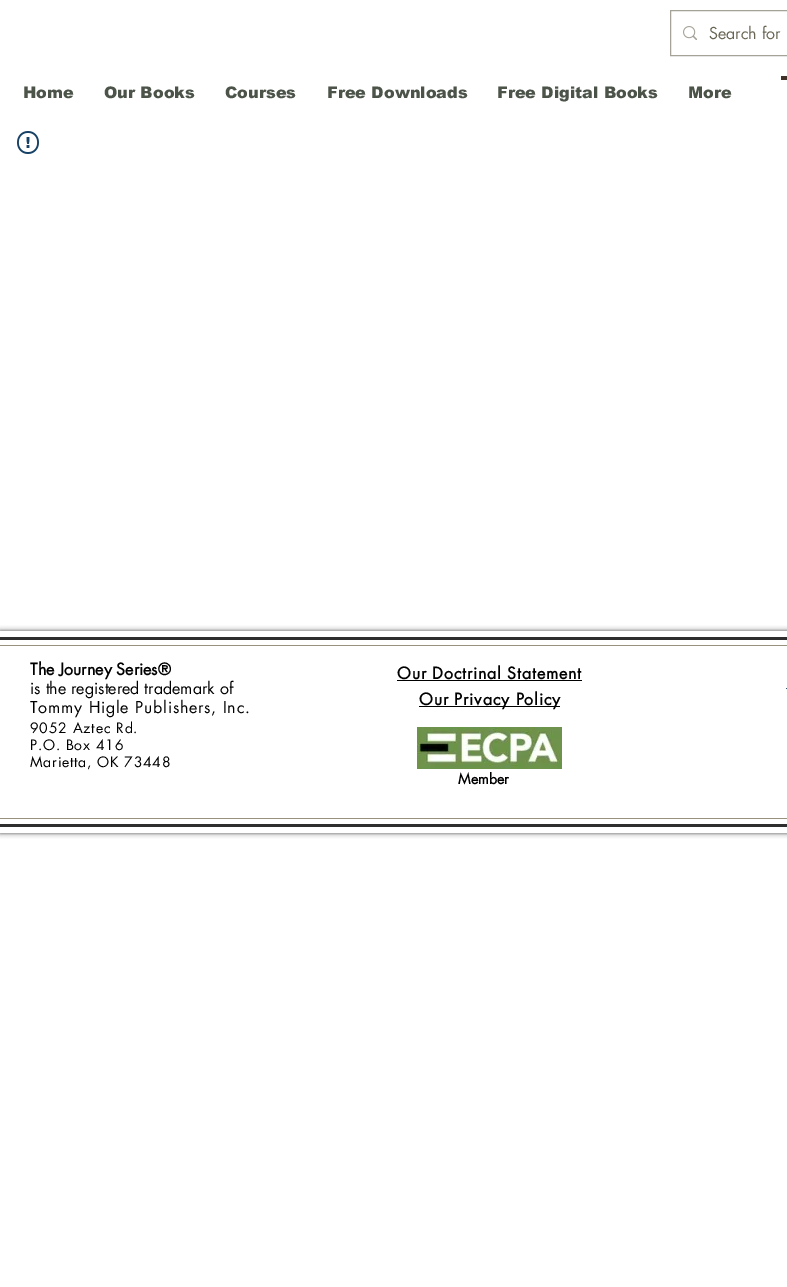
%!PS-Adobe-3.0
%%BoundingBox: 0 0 787 1287
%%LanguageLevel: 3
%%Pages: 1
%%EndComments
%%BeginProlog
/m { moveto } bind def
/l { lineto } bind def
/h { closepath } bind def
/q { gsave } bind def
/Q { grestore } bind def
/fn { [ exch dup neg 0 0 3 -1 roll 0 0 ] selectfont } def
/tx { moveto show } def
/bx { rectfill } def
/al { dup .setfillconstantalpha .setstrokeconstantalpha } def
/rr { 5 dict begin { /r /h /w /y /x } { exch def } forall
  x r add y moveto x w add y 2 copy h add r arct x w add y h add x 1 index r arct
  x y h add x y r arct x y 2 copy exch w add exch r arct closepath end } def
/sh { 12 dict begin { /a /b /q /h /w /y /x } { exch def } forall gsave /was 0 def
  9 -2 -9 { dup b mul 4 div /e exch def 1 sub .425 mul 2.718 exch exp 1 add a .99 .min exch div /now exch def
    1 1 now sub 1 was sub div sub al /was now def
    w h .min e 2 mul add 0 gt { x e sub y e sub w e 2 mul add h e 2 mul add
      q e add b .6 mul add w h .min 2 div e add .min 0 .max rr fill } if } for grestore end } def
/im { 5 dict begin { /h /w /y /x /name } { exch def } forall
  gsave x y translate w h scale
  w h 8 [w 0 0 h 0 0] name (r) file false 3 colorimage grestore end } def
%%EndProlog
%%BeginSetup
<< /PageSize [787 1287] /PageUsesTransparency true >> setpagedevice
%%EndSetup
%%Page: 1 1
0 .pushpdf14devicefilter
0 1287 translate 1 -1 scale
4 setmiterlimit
1 setgray
0 0 787 1287 bx
0.647 0.639 0.596 setrgbcolor
670.5 10.5 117 45 rectstroke
(image0.raw) 683 26 14 14 im
/futura-Regular 16 fn
0.412 0.396 0.329 setrgbcolor
(Search for) 709 39 tx
0.251 0.188 0.153 setrgbcolor
781 76 6 4 bx
/arial-Black 16 fn
0.298 0.329 0.286 setrgbcolor
(Home) 23 98 tx
(Our Books) 104 98 tx
(Courses) 225 98 tx
(Free Downloads) 327 98 tx
(Free Digital Books) 497 98 tx
(More) 688 98 tx
(image1.raw) 17 131 22 23 im
q
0 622 m 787 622 l 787 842 l 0 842 l h 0 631 m 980 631 l 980 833 l 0 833 l h eoclip newpath
0 setgray
0 631 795 202 0 2.5 0.7 sh
Q
0.184 0.18 0.18 setrgbcolor
0 637 787 3 bx
0 824 787 3 bx
0.592 0.569 0.49 setrgbcolor
0 645 787 1 bx
0 818 787 1 bx
/futura-Bold 16 fn
0 setgray
(The Journey Series®) 30 675 tx
/futura-Regular 16 fn
(is the registered trademark of) 30 694 tx
30 713 m 0.8 0 (Tommy Higle Publishers, Inc.) ashow
/futura-Regular 14 fn
30 733 m 0.8 0 (9052 Aztec Rd.) ashow
30 750 m 0.75 0 (P.O. Box 416) ashow
30 767 m 0.75 0 (Marietta, OK 73448) ashow
/futura-Bold 16 fn
397 679 m 0.8 0 (Our Doctrinal Statement) ashow
397 680 185 1 bx
419 706 141 1 bx
419 705 m 0.8 0 (Our Privacy Policy) ashow
0.2 0.318 0.408 setrgbcolor
786 688 1 1 bx
(image2.raw) 417 727 145 42 im
/futura-Bold 14 fn
0 setgray
(Member) 458 784 tx
.poppdf14devicefilter showpage
%%EOF
